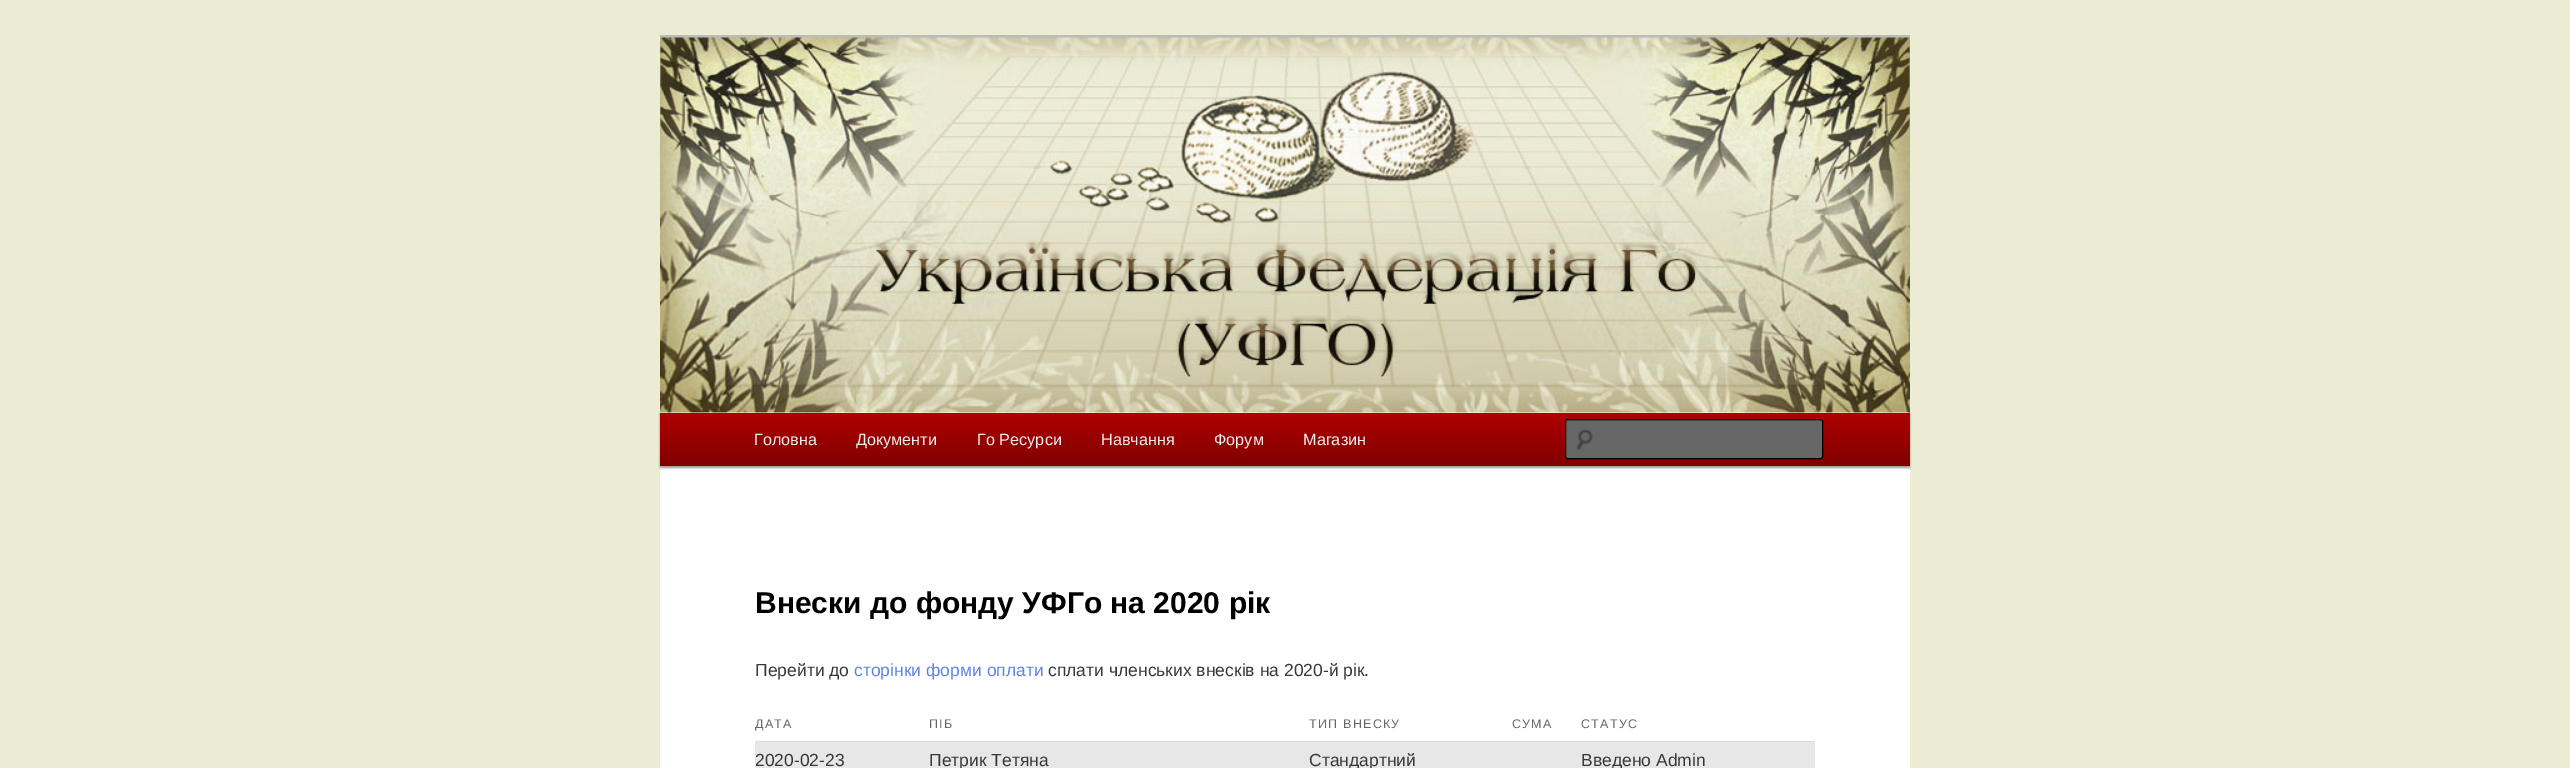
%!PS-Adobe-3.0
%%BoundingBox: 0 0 2570 768
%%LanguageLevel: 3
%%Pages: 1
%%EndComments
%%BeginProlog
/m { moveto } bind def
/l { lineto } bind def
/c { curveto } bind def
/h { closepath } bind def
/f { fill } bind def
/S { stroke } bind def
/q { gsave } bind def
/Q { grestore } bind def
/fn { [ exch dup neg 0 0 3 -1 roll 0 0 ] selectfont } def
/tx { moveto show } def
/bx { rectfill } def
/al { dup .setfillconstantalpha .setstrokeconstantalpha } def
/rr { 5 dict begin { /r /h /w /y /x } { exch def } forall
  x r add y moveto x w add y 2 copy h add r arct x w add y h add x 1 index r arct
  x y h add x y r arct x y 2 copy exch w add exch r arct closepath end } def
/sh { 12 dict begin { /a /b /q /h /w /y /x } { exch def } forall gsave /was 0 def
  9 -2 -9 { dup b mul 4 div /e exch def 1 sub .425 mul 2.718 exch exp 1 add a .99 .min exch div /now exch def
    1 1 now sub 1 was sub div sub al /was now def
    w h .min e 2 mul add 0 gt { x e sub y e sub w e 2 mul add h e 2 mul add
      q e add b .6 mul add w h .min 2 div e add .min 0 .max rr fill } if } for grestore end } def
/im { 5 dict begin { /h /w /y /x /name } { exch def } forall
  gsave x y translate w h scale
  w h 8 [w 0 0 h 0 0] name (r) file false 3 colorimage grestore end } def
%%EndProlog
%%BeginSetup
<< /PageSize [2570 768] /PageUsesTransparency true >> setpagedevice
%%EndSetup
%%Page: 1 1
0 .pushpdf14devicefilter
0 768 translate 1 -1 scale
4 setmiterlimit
0.925 0.922 0.827 setrgbcolor
0 0 2570 768 bx
1 setgray
660 412 1250 356 bx
0.733 setgray
660 35 1250 3 bx
0 setgray
660 414 1250 54 0 1 0.4 sh
(image0.raw) 660 37 1250 376 im
q 660 413 m 1910 413 l 1910 466 l 660 466 l h clip newpath
<< /ShadingType 2 /ColorSpace /DeviceRGB /Coords [1285 412 1285 466] /Extend [true true] /Function << /FunctionType 2 /Domain [0 1] /C0 [0.69 0 0] /C1 [0.502 0 0] /N 1 >> >> shfill Q
/LiberationSans-Regular 16.25 fn
0.933 setgray
(Головна) 754 445 tx
(Документи) 856 445 tx
(Го Ресурси) 977 445 tx
(Навчання) 1101 445 tx
(Форум) 1214 445 tx
(Магазин) 1303 445 tx
0.4 setgray
1565 419 258 40 2.5 rr f
(image1.raw) 1576 429 17 21 im
0.361 setgray
1568 421 m 1820 421 l 1821 422 l 1821 420 l 1567 420 l 1566 420 1566 421 1566 422 c h f
0 setgray
1565.5 419.5 257 39 2 rr S
/LiberationSans-Bold 30 fn
(Внески до фонду УФГо на 2020 рік) 755 613 tx
/LiberationSans-Regular 17.5 fn
0.216 setgray
(Перейти до) 755 676 tx
0.373 0.51 0.906 setrgbcolor
(сторінки форми оплати) 854 676 tx
0.216 setgray
(cплати членських внесків на 2020-й рік.) 1048 676 tx
/LiberationSans-Regular 12.5 fn
0.4 setgray
755 728 m 1.25 0 (ДАТА) ashow
929 728 m 1.25 0 (ПІБ) ashow
1309 728 m 1.25 0 (ТИП ВНЕСКУ) ashow
1512 728 m 1.25 0 (СУМА) ashow
1581 728 m 1.25 0 (СТАТУС) ashow
0.906 setgray
755 742 1060 26 bx
0.867 setgray
755 741 1060 1 bx
/LiberationSans-Regular 17.5 fn
0.216 setgray
(2020-02-23) 755 766 tx
(Пeтрик Тетяна) 929 766 tx
(Стандартний) 1309 766 tx
(Введено Admin) 1581 766 tx
.poppdf14devicefilter showpage
%%EOF
